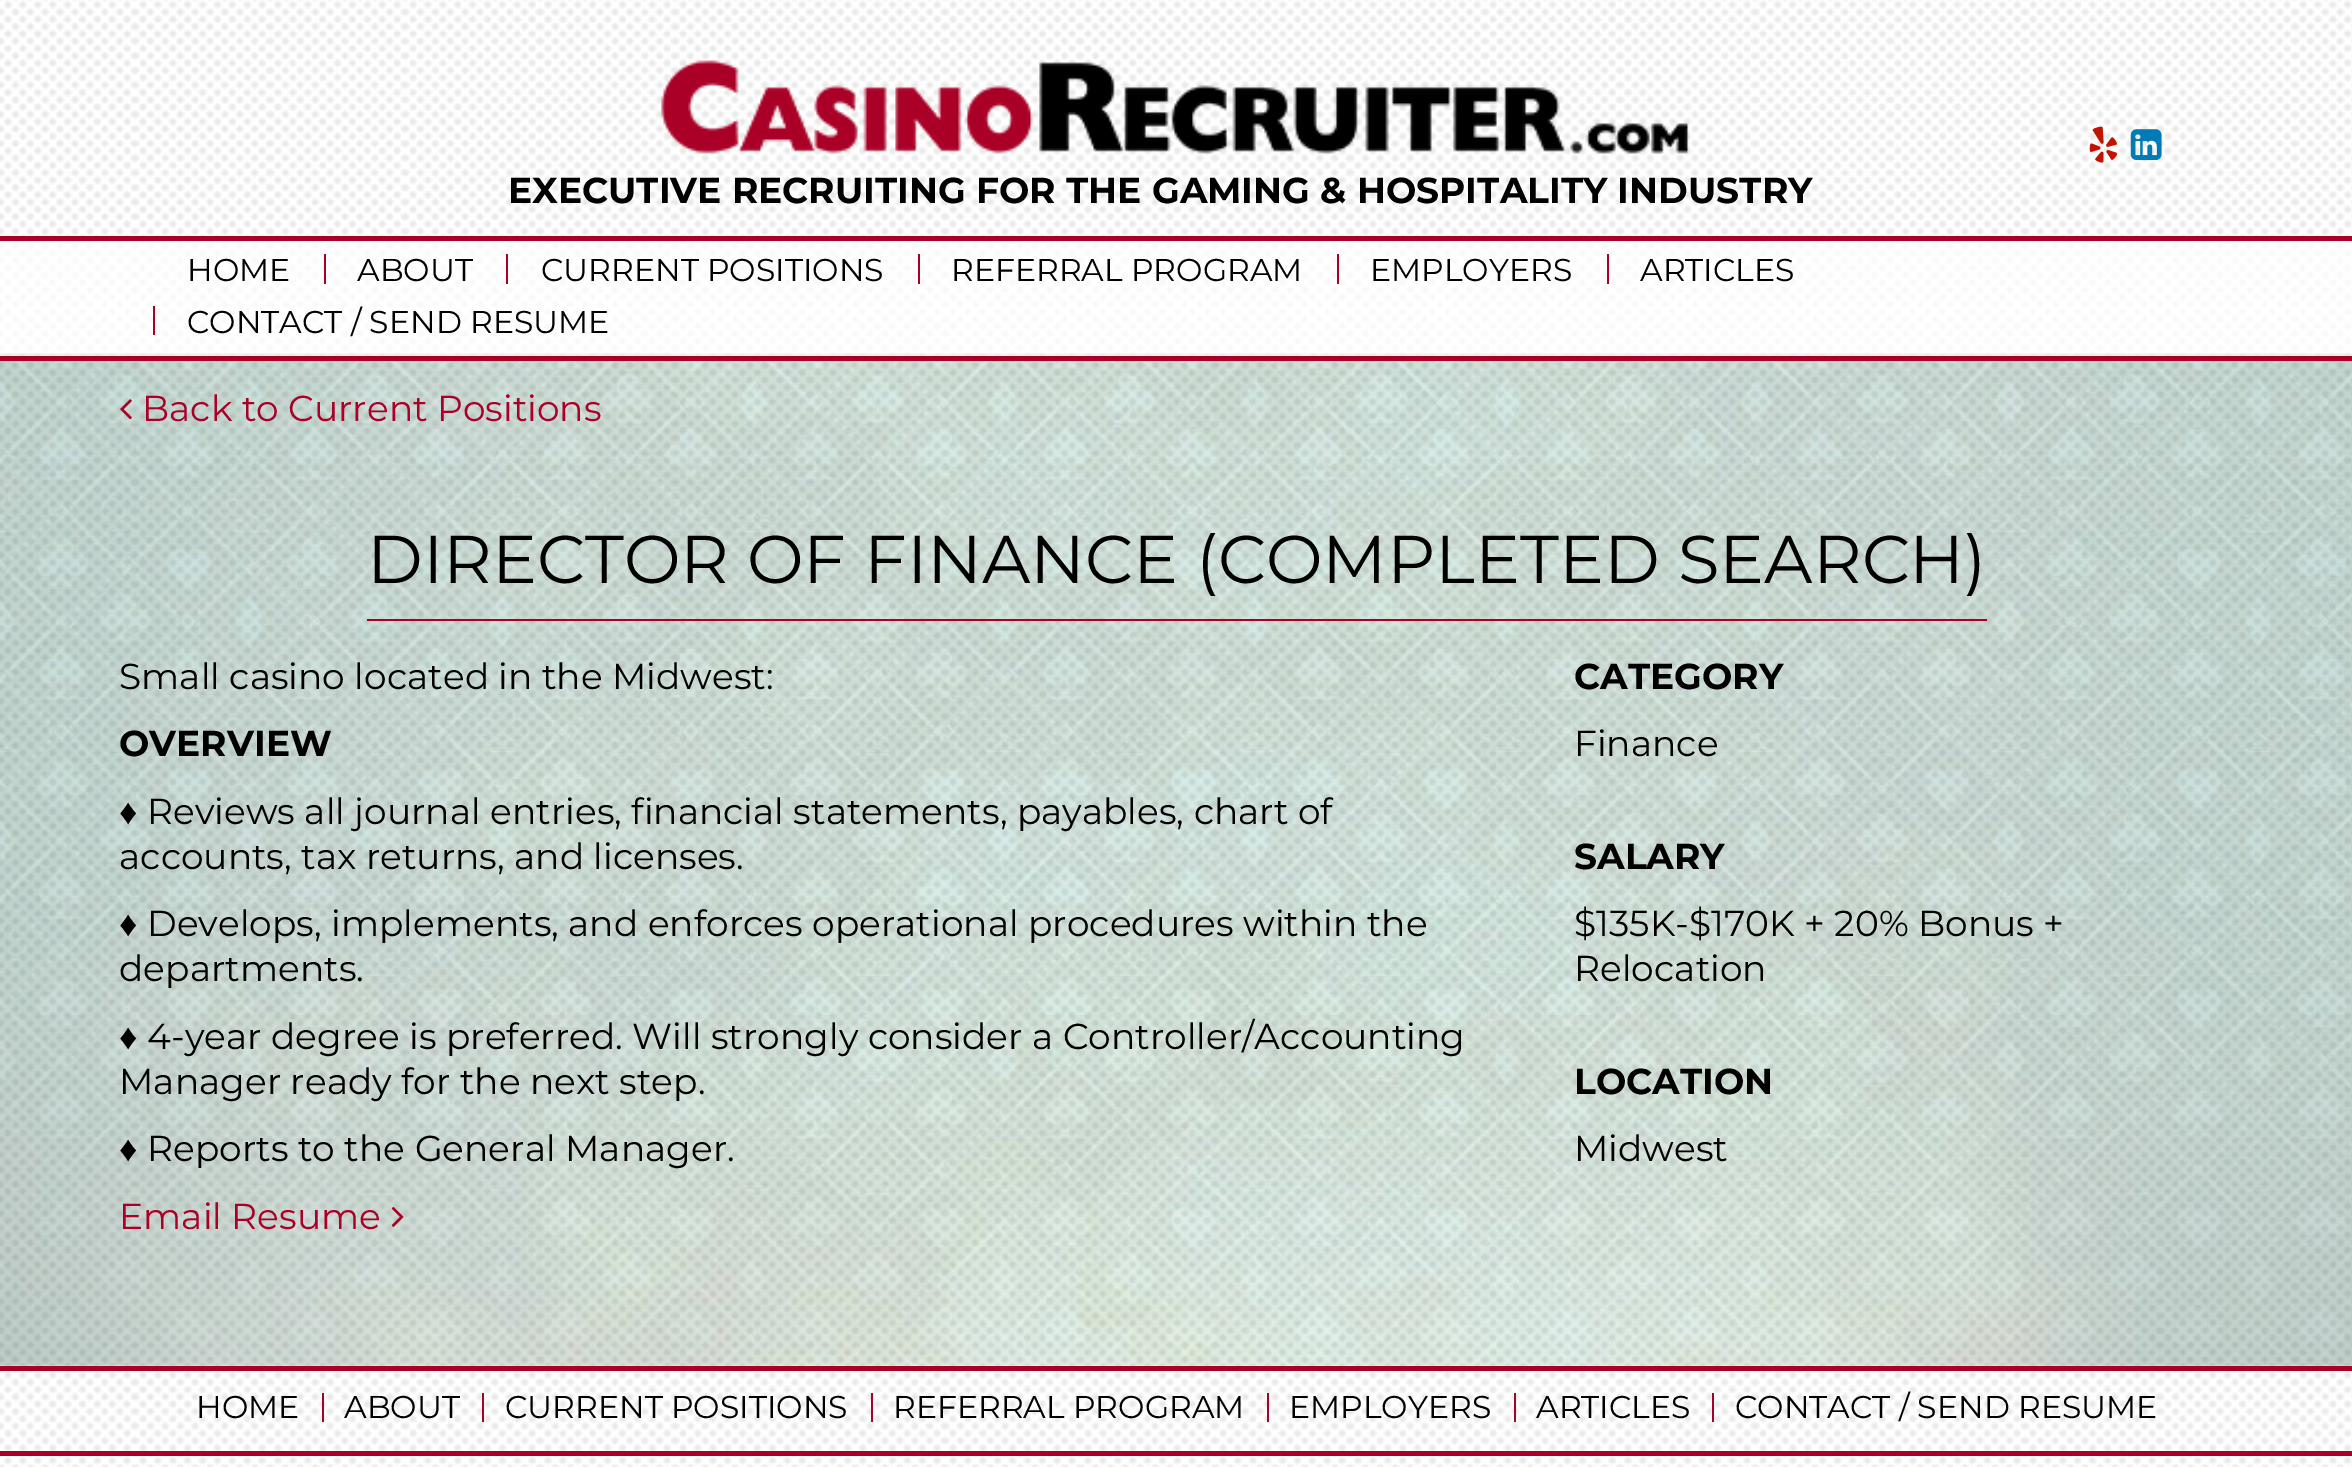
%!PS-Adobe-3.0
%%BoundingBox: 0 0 2352 1467
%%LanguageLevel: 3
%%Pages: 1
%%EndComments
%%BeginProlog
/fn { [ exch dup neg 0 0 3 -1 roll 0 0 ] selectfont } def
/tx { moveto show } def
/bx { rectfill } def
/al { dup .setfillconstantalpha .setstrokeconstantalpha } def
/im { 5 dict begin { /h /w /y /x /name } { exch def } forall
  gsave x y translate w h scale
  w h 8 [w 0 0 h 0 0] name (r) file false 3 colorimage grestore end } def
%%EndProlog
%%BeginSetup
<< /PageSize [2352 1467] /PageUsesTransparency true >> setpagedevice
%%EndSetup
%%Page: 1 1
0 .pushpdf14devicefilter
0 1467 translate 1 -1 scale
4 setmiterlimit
1 setgray
0 0 2352 1467 bx
(image4.raw) 0 353 2352 1013 im
(image5.raw) 0 353 2352 1013 im
(image0.raw) 0 0 2352 356 im
(image1.raw) 2089 126 29 37 im
(image2.raw) 2130 129 32 32 im
(image3.raw) 661 60 1028 94 im
/Montserrat-Bold 36 fn
0 setgray
(EXECUTIVE RECRUITING FOR THE GAMING & HOSPITALITY INDUSTRY) 508 203 tx
0.7 al
1 setgray
0 241 2352 115 bx
1 al
0.667 0 0.153 setrgbcolor
0 236 2352 5 bx
0 356 2352 5 bx
/Montserrat-Regular 31.5 fn
0 setgray
(HOME) 187 281 tx
0.667 0 0.153 setrgbcolor
324 254 2 30 bx
0 setgray
(ABOUT) 357 281 tx
0.667 0 0.153 setrgbcolor
506 254 2 30 bx
0 setgray
(CURRENT POSITIONS) 541 281 tx
0.667 0 0.153 setrgbcolor
918 254 2 30 bx
0 setgray
(REFERRAL PROGRAM) 951 281 tx
0.667 0 0.153 setrgbcolor
1337 254 2 30 bx
0 setgray
(EMPLOYERS) 1370 281 tx
0.667 0 0.153 setrgbcolor
1607 254 2 30 bx
0 setgray
(ARTICLES) 1640 281 tx
0.667 0 0.153 setrgbcolor
153 306 2 29 bx
0 setgray
(CONTACT / SEND RESUME) 187 333 tx
(image6.raw) 120 399 12 21 im
/Montserrat-Regular 36 fn
0.667 0 0.149 setrgbcolor
(Back to Current Positions) 142 421 tx
367 619 1620 2 bx
/Montserrat-Regular 67.5 fn
0 setgray
(DIRECTOR OF FINANCE \(COMPLETED SEARCH\)) 367 583 tx
/Montserrat-Regular 36 fn
(Small casino located in the Midwest:) 119 689 tx
/Montserrat-Bold 36 fn
(OVERVIEW) 119 756 tx
/LiberationSans-Regular 36 fn
(♦) 119 824 tx
/Montserrat-Regular 36 fn
(Reviews all journal entries, financial statements, payables, chart of) 147 824 tx
(accounts, tax returns, and licenses.) 119 869 tx
/LiberationSans-Regular 36 fn
(♦) 119 936 tx
/Montserrat-Regular 36 fn
(Develops, implements, and enforces operational procedures within the) 147 936 tx
(departments.) 119 981 tx
/LiberationSans-Regular 36 fn
(♦) 119 1049 tx
/Montserrat-Regular 36 fn
(4-year degree is preferred. Will strongly consider a Controller/Accounting) 147 1049 tx
(Manager ready for the next step.) 119 1094 tx
/LiberationSans-Regular 36 fn
(♦) 119 1161 tx
/Montserrat-Regular 36 fn
(Reports to the General Manager.) 147 1161 tx
0.667 0 0.149 setrgbcolor
(Email Resume) 119 1229 tx
(image7.raw) 391 1207 13 20 im
/Montserrat-Bold 36 fn
0 setgray
(CATEGORY) 1574 689 tx
/Montserrat-Regular 36 fn
(Finance) 1574 756 tx
/Montserrat-Bold 36 fn
(SALARY) 1574 869 tx
/Montserrat-Regular 36 fn
($135K-$170K + 20% Bonus +) 1574 936 tx
(Relocation) 1574 981 tx
/Montserrat-Bold 36 fn
(LOCATION) 1574 1094 tx
/Montserrat-Regular 36 fn
(Midwest) 1574 1161 tx
(image8.raw) 0 1371 2352 80 im
0.667 0 0.153 setrgbcolor
0 1366 2352 5 bx
/Montserrat-Regular 31.5 fn
0 setgray
(HOME) 196 1418 tx
0.667 0 0.153 setrgbcolor
322 1393 2 29 bx
0 setgray
(ABOUT) 344 1418 tx
0.667 0 0.153 setrgbcolor
482 1393 2 29 bx
0 setgray
(CURRENT POSITIONS) 505 1418 tx
0.667 0 0.153 setrgbcolor
871 1393 2 29 bx
0 setgray
(REFERRAL PROGRAM) 893 1418 tx
0.667 0 0.153 setrgbcolor
1267 1393 2 29 bx
0 setgray
(EMPLOYERS) 1289 1418 tx
0.667 0 0.153 setrgbcolor
1514 1393 2 29 bx
0 setgray
(ARTICLES) 1536 1418 tx
0.667 0 0.153 setrgbcolor
1712 1393 2 29 bx
0 setgray
(CONTACT / SEND RESUME) 1735 1418 tx
(image9.raw) 0 1456 2352 11 im
0.667 0 0.153 setrgbcolor
0 1451 2352 5 bx
.poppdf14devicefilter showpage
%%EOF
